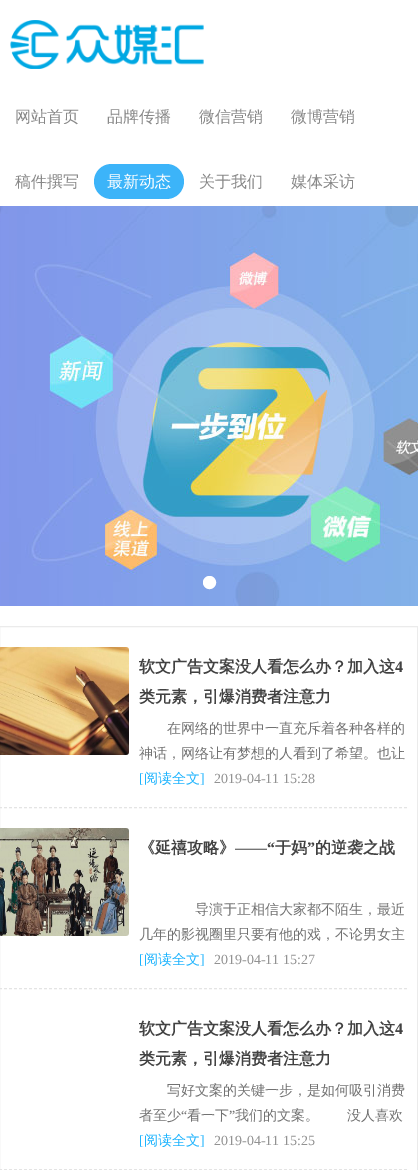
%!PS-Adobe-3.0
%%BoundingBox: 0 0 418 1170
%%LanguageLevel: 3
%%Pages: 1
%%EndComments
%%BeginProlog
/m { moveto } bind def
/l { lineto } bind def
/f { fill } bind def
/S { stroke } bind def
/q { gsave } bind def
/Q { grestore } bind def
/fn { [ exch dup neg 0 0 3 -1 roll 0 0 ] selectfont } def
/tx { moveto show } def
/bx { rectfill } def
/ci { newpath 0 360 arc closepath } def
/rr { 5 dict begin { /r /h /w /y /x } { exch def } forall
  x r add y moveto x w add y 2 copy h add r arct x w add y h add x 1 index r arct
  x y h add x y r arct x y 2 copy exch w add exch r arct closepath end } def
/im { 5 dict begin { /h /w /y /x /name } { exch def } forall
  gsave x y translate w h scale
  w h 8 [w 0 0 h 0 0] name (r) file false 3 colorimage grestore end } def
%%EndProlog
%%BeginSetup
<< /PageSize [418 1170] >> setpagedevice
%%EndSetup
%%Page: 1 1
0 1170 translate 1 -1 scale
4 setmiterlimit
1 setgray
0 0 418 1170 bx
(image0.raw) 10 20 194 49 im
/WenQuanYiZenHei-Medium 16 fn
0.533 setgray
(网站首页) 15 122 tx
(品牌传播) 107 122 tx
(微信营销) 199 122 tx
(微博营销) 291 122 tx
(稿件撰写) 15 187 tx
0.235 0.706 0.976 setrgbcolor
94 164 90 35 17.5 rr f
1 setgray
(最新动态) 107 187 tx
0.533 setgray
(关于我们) 199 187 tx
(媒体采访) 291 187 tx
(image1.raw) 0 206 418 400 im
1 setgray
209.5 582.5 6 ci q f Q
S
0.922 setgray
-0.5 626.5 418 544 rectstroke
0.894 setgray
[3 2] 0 setdash
-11 807.5 m 407 807.5 l S
(image2.raw) 0 647 129 108 im
/WenQuanYiZenHei-Bold 16 fn
0.259 setgray
(软文广告文案没人看怎么办？加入这) 139 672 tx
/LiberationSerif-Bold 16 fn
(4) 395 672 tx
/WenQuanYiZenHei-Bold 16 fn
(类元素，引爆消费者注意力) 139 702 tx
/WenQuanYiZenHei-Medium 14 fn
0.447 setgray
(在网络的世界中一直充斥着各种各样的) 167 733 tx
(神话，网络让有梦想的人看到了希望。也让) 139 758 tx
/LiberationSerif-Regular 14 fn
0.114 0.706 0.996 setrgbcolor
([) 139 783 tx
/WenQuanYiZenHei-Medium 14 fn
(阅读全文) 144 783 tx
/LiberationSerif-Regular 14 fn
(]) 200 783 tx
0.573 setgray
(2019-04-11 15:28) 214 783 tx
0.894 setgray
-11 988.5 m 407 988.5 l S
(image3.raw) 0 828 129 108 im
/WenQuanYiZenHei-Bold 16 fn
0.259 setgray
(《延禧攻略》) 139 853 tx
/LiberationSerif-Bold 16 fn
(——“) 235 853 tx
/WenQuanYiZenHei-Bold 16 fn
(于妈) 275 853 tx
/LiberationSerif-Bold 16 fn
(”) 307 853 tx
/WenQuanYiZenHei-Bold 16 fn
(的逆袭之战) 315 853 tx
/WenQuanYiZenHei-Medium 14 fn
0.447 setgray
(导演于正相信大家都不陌生，最近) 195 914 tx
(几年的影视圈里只要有他的戏，不论男女主) 139 939 tx
/LiberationSerif-Regular 14 fn
0.114 0.706 0.996 setrgbcolor
([) 139 964 tx
/WenQuanYiZenHei-Medium 14 fn
(阅读全文) 144 964 tx
/LiberationSerif-Regular 14 fn
(]) 200 964 tx
0.573 setgray
(2019-04-11 15:27) 214 964 tx
0.894 setgray
-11 1169.5 m 407 1169.5 l S
/WenQuanYiZenHei-Bold 16 fn
0.259 setgray
(软文广告文案没人看怎么办？加入这) 139 1034 tx
/LiberationSerif-Bold 16 fn
(4) 395 1034 tx
/WenQuanYiZenHei-Bold 16 fn
(类元素，引爆消费者注意力) 139 1064 tx
/WenQuanYiZenHei-Medium 14 fn
0.447 setgray
(写好文案的关键一步，是如何吸引消费) 167 1095 tx
(者至少) 139 1120 tx
/LiberationSerif-Regular 14 fn
(“) 181 1120 tx
/WenQuanYiZenHei-Medium 14 fn
(看一下) 187 1120 tx
/LiberationSerif-Regular 14 fn
(”) 229 1120 tx
/WenQuanYiZenHei-Medium 14 fn
(我们的文案。　　没人喜欢) 235 1120 tx
/LiberationSerif-Regular 14 fn
0.114 0.706 0.996 setrgbcolor
([) 139 1145 tx
/WenQuanYiZenHei-Medium 14 fn
(阅读全文) 144 1145 tx
/LiberationSerif-Regular 14 fn
(]) 200 1145 tx
0.573 setgray
(2019-04-11 15:25) 214 1145 tx
showpage
%%EOF
